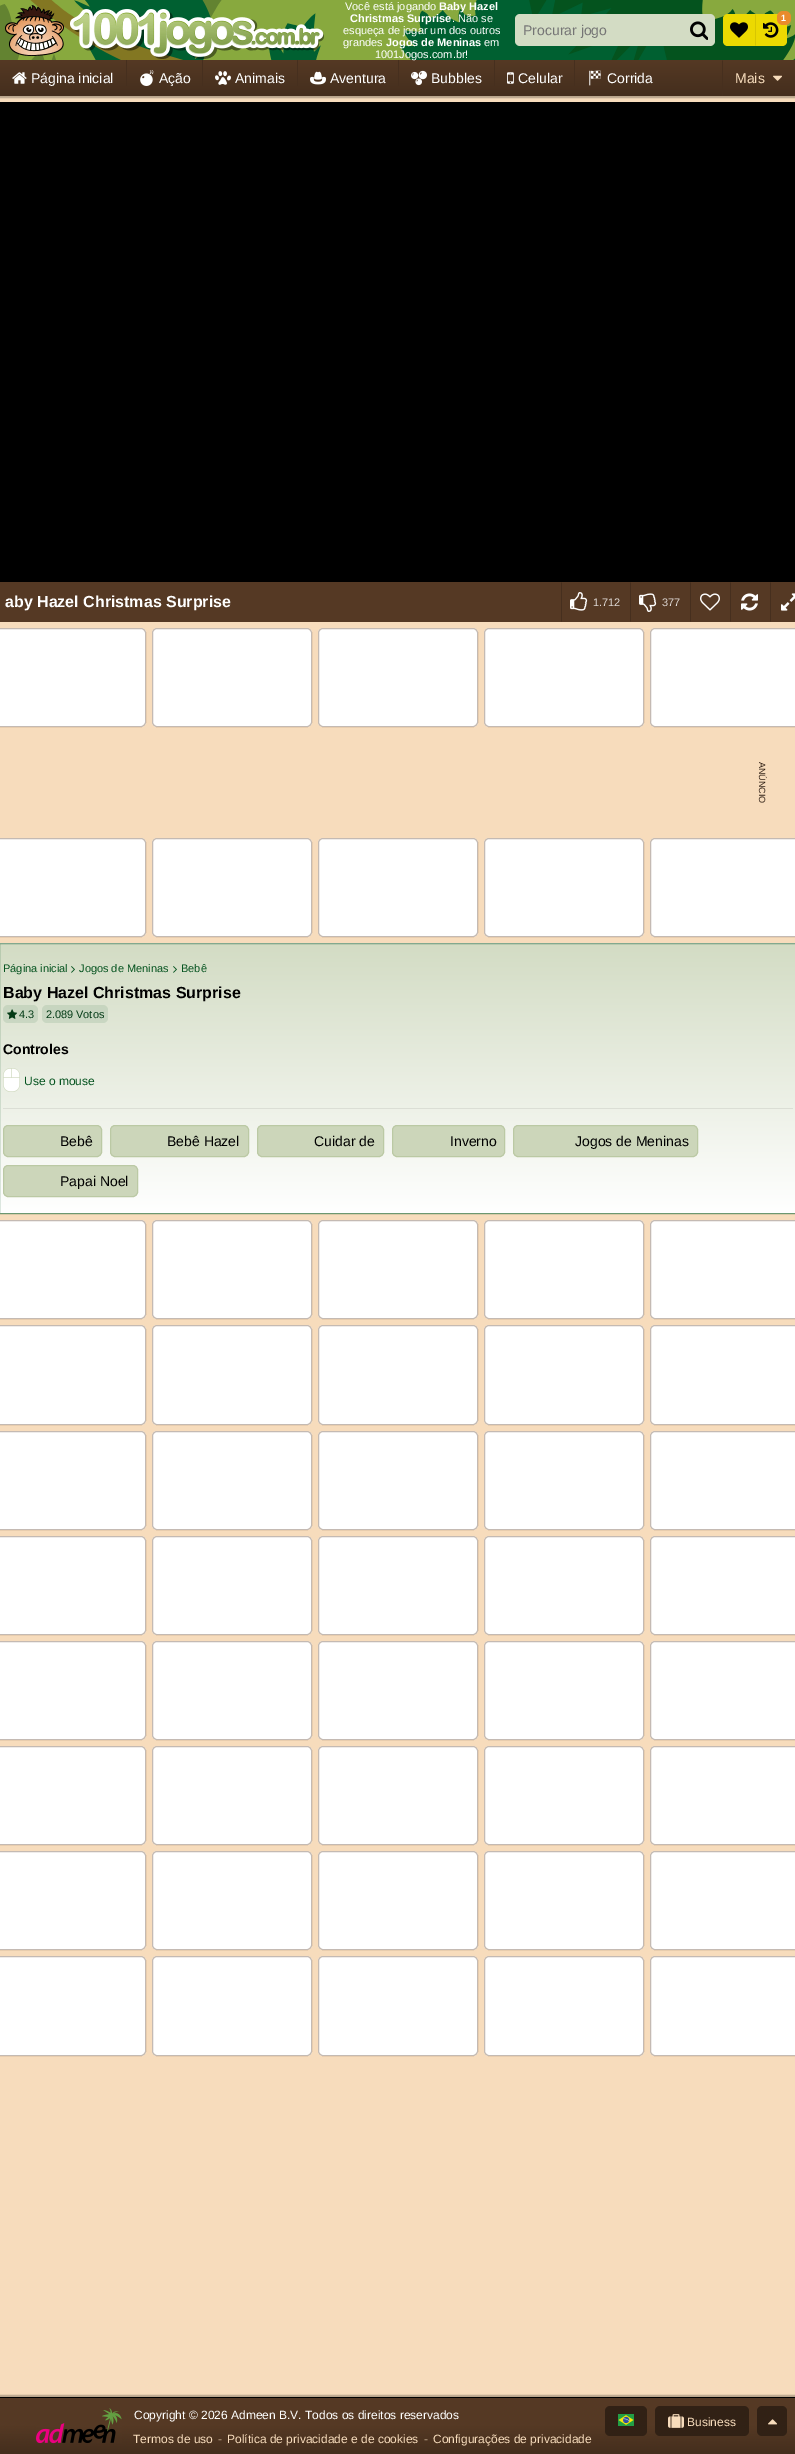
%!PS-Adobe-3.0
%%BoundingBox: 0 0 795 2454
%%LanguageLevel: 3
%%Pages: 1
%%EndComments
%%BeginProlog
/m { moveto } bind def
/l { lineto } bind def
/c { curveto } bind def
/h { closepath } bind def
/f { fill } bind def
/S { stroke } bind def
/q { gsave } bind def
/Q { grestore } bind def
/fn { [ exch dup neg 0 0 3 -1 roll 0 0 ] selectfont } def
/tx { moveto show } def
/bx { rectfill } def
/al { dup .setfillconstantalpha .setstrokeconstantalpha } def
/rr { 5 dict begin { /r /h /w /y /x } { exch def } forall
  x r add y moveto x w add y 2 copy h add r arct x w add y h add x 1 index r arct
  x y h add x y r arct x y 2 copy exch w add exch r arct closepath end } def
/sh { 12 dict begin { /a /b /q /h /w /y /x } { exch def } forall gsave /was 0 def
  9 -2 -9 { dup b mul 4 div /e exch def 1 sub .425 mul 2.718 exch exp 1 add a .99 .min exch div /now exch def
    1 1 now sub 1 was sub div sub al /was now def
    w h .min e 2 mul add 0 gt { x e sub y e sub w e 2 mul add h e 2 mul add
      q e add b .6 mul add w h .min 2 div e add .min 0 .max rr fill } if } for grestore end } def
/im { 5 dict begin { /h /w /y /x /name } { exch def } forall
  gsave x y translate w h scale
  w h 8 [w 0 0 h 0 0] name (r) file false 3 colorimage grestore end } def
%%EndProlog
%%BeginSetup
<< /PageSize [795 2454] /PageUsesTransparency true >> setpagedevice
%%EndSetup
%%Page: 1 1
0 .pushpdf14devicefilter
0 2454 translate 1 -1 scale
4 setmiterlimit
0.969 0.863 0.737 setrgbcolor
0 0 795 2454 bx
0 setgray
-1 60 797 38 0 0.5 0.25 sh
0.388 0.514 0.192 setrgbcolor
0 0 222 60 bx
(image0.raw) 0 0 795 60 im
(image1.raw) 5 5 319 54 im
/LiberationSans-Regular 11 fn
1 setgray
(Você está jogando) 345 10 tx
/LiberationSans-Bold 11 fn
(Baby Hazel) 439 10 tx
(Christmas Surprise) 350 22 tx
/LiberationSans-Regular 11 fn
(. Não se) 452 22 tx
(esqueça de jogar um dos outros) 343 34 tx
(grandes) 343 46 tx
/LiberationSans-Bold 11 fn
(Jogos de Meninas) 386 46 tx
/LiberationSans-Regular 11 fn
(em) 484 46 tx
q 0 60 m 795 60 l 795 96 l 0 96 l h clip newpath
<< /ShadingType 2 /ColorSpace /DeviceRGB /Coords [398 60 398 96] /Extend [true true] /Function << /FunctionType 2 /Domain [0 1] /C0 [0.333 0.224 0.141] /C1 [0.267 0.18 0.114] /N 1 >> >> shfill Q
0.275 0.184 0.118 setrgbcolor
398 60 1 26 bx
1 setgray
(1001Jogos.com.br!) 375 58 tx
0.925 0.851 0.004 setrgbcolor
728 14 m 755 14 l 755 46 l 728 46 l 725 46 723 44 723 41 c 723 19 l 723 16 725 14 728 14 c h f
(image2.raw) 730 22 18 16 im
755 14 m 782 14 l 785 14 787 16 787 19 c 787 41 l 787 44 785 46 782 46 c 755 46 l h f
0.847 0.776 0.004 setrgbcolor
755 14 m 755 46 l 756 45 l 756 15 l h f
(image3.raw) 763 22 16 16 im
0.914 0.545 0.173 setrgbcolor
777 11 14 14 6 rr f
/LiberationSans-Bold 9 fn
1 setgray
(1) 781 21 tx
0.827 0.863 0.769 setrgbcolor
515 14 200 32 5 rr f
/LiberationSans-Regular 14 fn
0.459 setgray
(Procurar jogo) 523 35 tx
(image4.raw) 690 21 18 19 im
(image5.raw) 12 72 15 12 im
1 setgray
(Página inicial) 31 83 tx
0.275 0.184 0.118 setrgbcolor
126 60 1 26 bx
(image6.raw) 140 70 14 16 im
1 setgray
(Ação) 159 83 tx
0.275 0.184 0.118 setrgbcolor
202 60 1 26 bx
(image7.raw) 215 71 16 14 im
1 setgray
(Animais) 235 83 tx
0.275 0.184 0.118 setrgbcolor
297 60 1 26 bx
(image8.raw) 310 71 16 14 im
1 setgray
(Aventura) 330 83 tx
(image9.raw) 411 70 16 16 im
(Bubbles) 431 83 tx
0.275 0.184 0.118 setrgbcolor
494 60 1 26 bx
(image10.raw) 507 72 7 12 im
1 setgray
(Celular) 518 83 tx
0.275 0.184 0.118 setrgbcolor
574 60 1 26 bx
(image11.raw) 589 70 12 16 im
1 setgray
(Corrida) 607 83 tx
0.275 0.184 0.118 setrgbcolor
722 96 m 722 60 l 723 61 l 723 95 l h f
0.969 0.863 0.737 setrgbcolor
(Mais) 735 83 tx
(image12.raw) 773 75 9 6 im
0 setgray
0 102 795 480 bx
0.333 0.224 0.141 setrgbcolor
0 582 795 40 bx
/LiberationSans-Bold 16 fn
1 setgray
(aby Hazel Christmas Surprise) 5 607 tx
0.275 0.184 0.118 setrgbcolor
561 622 m 561 582 l 562 583 l 562 621 l h f
(image13.raw) 570 592 18 19 im
/LiberationSans-Regular 11 fn
0.867 0.843 0.827 setrgbcolor
(1.712) 593 606 tx
0.275 0.184 0.118 setrgbcolor
630 622 m 630 582 l 631 583 l 631 621 l h 690 622 m 690 582 l 691 583 l 691 621 l h f
(image14.raw) 639 593 18 19 im
0.867 0.843 0.827 setrgbcolor
(377) 662 606 tx
(image15.raw) 700 593 20 18 im
0.275 0.184 0.118 setrgbcolor
730 622 m 730 582 l 731 583 l 731 621 l h 770 582 m 770 622 l 771 621 l 771 583 l h f
(image16.raw) 741 593 17 18 im
(image17.raw) 781 593 14 18 im
1 setgray
-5 628 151 99 5 rr f
0.35 al
0.333 0.224 0.141 setrgbcolor
-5.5 628.5 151 98 4.5 rr S
1 al
1 setgray
152 628 160 99 5 rr f
0.35 al
0.333 0.224 0.141 setrgbcolor
152.5 628.5 159 98 4.5 rr S
1 al
1 setgray
318 628 160 99 5 rr f
0.35 al
0.333 0.224 0.141 setrgbcolor
318.5 628.5 159 98 4.5 rr S
1 al
1 setgray
484 628 160 99 5 rr f
0.35 al
0.333 0.224 0.141 setrgbcolor
484.5 628.5 159 98 4.5 rr S
1 al
1 setgray
650 628 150 99 5 rr f
0.35 al
0.333 0.224 0.141 setrgbcolor
650.5 628.5 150 98 4.5 rr S
/LiberationSans-Regular 9 fn
1 al
0.192 0.129 0.082 setrgbcolor
q 759 762 translate 90 rotate 0 0 m (ANÚNCIO) show Q
1 setgray
-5 838 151 99 5 rr f
0.35 al
0.333 0.224 0.141 setrgbcolor
-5.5 838.5 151 98 4.5 rr S
1 al
1 setgray
152 838 160 99 5 rr f
0.35 al
0.333 0.224 0.141 setrgbcolor
152.5 838.5 159 98 4.5 rr S
1 al
1 setgray
318 838 160 99 5 rr f
0.35 al
0.333 0.224 0.141 setrgbcolor
318.5 838.5 159 98 4.5 rr S
1 al
1 setgray
484 838 160 99 5 rr f
0.35 al
0.333 0.224 0.141 setrgbcolor
484.5 838.5 159 98 4.5 rr S
1 al
1 setgray
650 838 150 99 5 rr f
0.35 al
0.333 0.224 0.141 setrgbcolor
650.5 838.5 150 98 4.5 rr S
1 al
0.827 0.863 0.769 setrgbcolor
0 1213 795 1 bx
q 0 943 m 795 943 l 795 944 l 0 944 l h clip newpath
<< /ShadingType 2 /ColorSpace /DeviceRGB /Coords [398 675 398 944] /Extend [true true] /Function << /FunctionType 2 /Domain [0 1] /C0 [0.827 0.863 0.769] /C1 [1 1 1] /N 1 >> >> shfill Q
q 0 944 m 795 944 l 795 1213 l 0 1213 l h clip newpath
<< /ShadingType 2 /ColorSpace /DeviceRGB /Coords [398 944 398 1213] /Extend [true true] /Function << /FunctionType 2 /Domain [0 1] /C0 [0.827 0.863 0.769] /C1 [1 1 1] /N 1 >> >> shfill Q
0.5 al
0.02 0.325 0.122 setrgbcolor
-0.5 943.5 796 270 rectstroke
/LiberationSans-Regular 11 fn
1 al
(Página inicial) 3 972 tx
(image18.raw) 71 966 4 7 im
(Jogos de Meninas) 79 972 tx
(image18.raw) 173 966 4 7 im
(Bebê) 181 972 tx
/LiberationSans-Bold 16 fn
0 setgray
(Baby Hazel Christmas Surprise) 3 998 tx
0.1 al
0.02 0.325 0.122 setrgbcolor
3 1005 35 18 5 rr f
1 al
(image19.raw) 7 1009 10 10 im
/LiberationSans-Regular 11 fn
0.016 0.231 0.086 setrgbcolor
(4.3) 19 1018 tx
0.1 al
0.02 0.325 0.122 setrgbcolor
42 1005 66 18 5 rr f
1 al
0.016 0.231 0.086 setrgbcolor
(2.089) 46 1018 tx
(Votos) 76 1018 tx
/LiberationSans-Bold 14 fn
0 setgray
(Controles) 3 1054 tx
(image20.raw) 3 1068 17 24 im
/LiberationSans-Regular 12 fn
0.02 0.325 0.122 setrgbcolor
(Use o mouse) 24 1085 tx
0.859 0.871 0.835 setrgbcolor
3 1108 790 1 bx
0.8 0.839 0.729 setrgbcolor
3.5 1125.5 98 31 4.5 rr q f Q
0.733 0.788 0.643 setrgbcolor
S
/LiberationSans-Regular 14 fn
0 setgray
(Bebê) 60 1146 tx
0.8 0.839 0.729 setrgbcolor
110.5 1125.5 138 31 4.5 rr q f Q
0.733 0.788 0.643 setrgbcolor
S
0 setgray
(Bebê Hazel) 167 1146 tx
0.8 0.839 0.729 setrgbcolor
257.5 1125.5 126 31 4.5 rr q f Q
0.733 0.788 0.643 setrgbcolor
S
0 setgray
(Cuidar de) 314 1146 tx
0.8 0.839 0.729 setrgbcolor
392.5 1125.5 112 31 4.5 rr q f Q
0.733 0.788 0.643 setrgbcolor
S
0 setgray
(Inverno) 450 1146 tx
0.8 0.839 0.729 setrgbcolor
513.5 1125.5 184 31 4.5 rr q f Q
0.733 0.788 0.643 setrgbcolor
S
0 setgray
(Jogos de Meninas) 575 1146 tx
0.8 0.839 0.729 setrgbcolor
3.5 1165.5 134 31 4.5 rr q f Q
0.733 0.788 0.643 setrgbcolor
S
0 setgray
(Papai Noel) 60 1186 tx
1 setgray
-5 1220 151 99 5 rr f
0.35 al
0.333 0.224 0.141 setrgbcolor
-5.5 1220.5 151 98 4.5 rr S
1 al
1 setgray
152 1220 160 99 5 rr f
0.35 al
0.333 0.224 0.141 setrgbcolor
152.5 1220.5 159 98 4.5 rr S
1 al
1 setgray
318 1220 160 99 5 rr f
0.35 al
0.333 0.224 0.141 setrgbcolor
318.5 1220.5 159 98 4.5 rr S
1 al
1 setgray
484 1220 160 99 5 rr f
0.35 al
0.333 0.224 0.141 setrgbcolor
484.5 1220.5 159 98 4.5 rr S
1 al
1 setgray
650 1220 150 99 5 rr f
0.35 al
0.333 0.224 0.141 setrgbcolor
650.5 1220.5 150 98 4.5 rr S
1 al
1 setgray
-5 1325 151 100 5 rr f
0.35 al
0.333 0.224 0.141 setrgbcolor
-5.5 1325.5 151 99 4.5 rr S
1 al
1 setgray
152 1325 160 100 5 rr f
0.35 al
0.333 0.224 0.141 setrgbcolor
152.5 1325.5 159 99 4.5 rr S
1 al
1 setgray
318 1325 160 100 5 rr f
0.35 al
0.333 0.224 0.141 setrgbcolor
318.5 1325.5 159 99 4.5 rr S
1 al
1 setgray
484 1325 160 100 5 rr f
0.35 al
0.333 0.224 0.141 setrgbcolor
484.5 1325.5 159 99 4.5 rr S
1 al
1 setgray
650 1325 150 100 5 rr f
0.35 al
0.333 0.224 0.141 setrgbcolor
650.5 1325.5 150 99 4.5 rr S
1 al
1 setgray
-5 1431 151 99 5 rr f
0.35 al
0.333 0.224 0.141 setrgbcolor
-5.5 1431.5 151 98 4.5 rr S
1 al
1 setgray
152 1431 160 99 5 rr f
0.35 al
0.333 0.224 0.141 setrgbcolor
152.5 1431.5 159 98 4.5 rr S
1 al
1 setgray
318 1431 160 99 5 rr f
0.35 al
0.333 0.224 0.141 setrgbcolor
318.5 1431.5 159 98 4.5 rr S
1 al
1 setgray
484 1431 160 99 5 rr f
0.35 al
0.333 0.224 0.141 setrgbcolor
484.5 1431.5 159 98 4.5 rr S
1 al
1 setgray
650 1431 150 99 5 rr f
0.35 al
0.333 0.224 0.141 setrgbcolor
650.5 1431.5 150 98 4.5 rr S
1 al
1 setgray
-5 1536 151 99 5 rr f
0.35 al
0.333 0.224 0.141 setrgbcolor
-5.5 1536.5 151 98 4.5 rr S
1 al
1 setgray
152 1536 160 99 5 rr f
0.35 al
0.333 0.224 0.141 setrgbcolor
152.5 1536.5 159 98 4.5 rr S
1 al
1 setgray
318 1536 160 99 5 rr f
0.35 al
0.333 0.224 0.141 setrgbcolor
318.5 1536.5 159 98 4.5 rr S
1 al
1 setgray
484 1536 160 99 5 rr f
0.35 al
0.333 0.224 0.141 setrgbcolor
484.5 1536.5 159 98 4.5 rr S
1 al
1 setgray
650 1536 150 99 5 rr f
0.35 al
0.333 0.224 0.141 setrgbcolor
650.5 1536.5 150 98 4.5 rr S
1 al
1 setgray
-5 1641 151 99 5 rr f
0.35 al
0.333 0.224 0.141 setrgbcolor
-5.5 1641.5 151 98 4.5 rr S
1 al
1 setgray
152 1641 160 99 5 rr f
0.35 al
0.333 0.224 0.141 setrgbcolor
152.5 1641.5 159 98 4.5 rr S
1 al
1 setgray
318 1641 160 99 5 rr f
0.35 al
0.333 0.224 0.141 setrgbcolor
318.5 1641.5 159 98 4.5 rr S
1 al
1 setgray
484 1641 160 99 5 rr f
0.35 al
0.333 0.224 0.141 setrgbcolor
484.5 1641.5 159 98 4.5 rr S
1 al
1 setgray
650 1641 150 99 5 rr f
0.35 al
0.333 0.224 0.141 setrgbcolor
650.5 1641.5 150 98 4.5 rr S
1 al
1 setgray
-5 1746 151 99 5 rr f
0.35 al
0.333 0.224 0.141 setrgbcolor
-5.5 1746.5 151 98 4.5 rr S
1 al
1 setgray
152 1746 160 99 5 rr f
0.35 al
0.333 0.224 0.141 setrgbcolor
152.5 1746.5 159 98 4.5 rr S
1 al
1 setgray
318 1746 160 99 5 rr f
0.35 al
0.333 0.224 0.141 setrgbcolor
318.5 1746.5 159 98 4.5 rr S
1 al
1 setgray
484 1746 160 99 5 rr f
0.35 al
0.333 0.224 0.141 setrgbcolor
484.5 1746.5 159 98 4.5 rr S
1 al
1 setgray
650 1746 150 99 5 rr f
0.35 al
0.333 0.224 0.141 setrgbcolor
650.5 1746.5 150 98 4.5 rr S
1 al
1 setgray
-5 1851 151 99 5 rr f
0.35 al
0.333 0.224 0.141 setrgbcolor
-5.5 1851.5 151 98 4.5 rr S
1 al
1 setgray
152 1851 160 99 5 rr f
0.35 al
0.333 0.224 0.141 setrgbcolor
152.5 1851.5 159 98 4.5 rr S
1 al
1 setgray
318 1851 160 99 5 rr f
0.35 al
0.333 0.224 0.141 setrgbcolor
318.5 1851.5 159 98 4.5 rr S
1 al
1 setgray
484 1851 160 99 5 rr f
0.35 al
0.333 0.224 0.141 setrgbcolor
484.5 1851.5 159 98 4.5 rr S
1 al
1 setgray
650 1851 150 99 5 rr f
0.35 al
0.333 0.224 0.141 setrgbcolor
650.5 1851.5 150 98 4.5 rr S
1 al
1 setgray
-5 1956 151 100 5 rr f
0.35 al
0.333 0.224 0.141 setrgbcolor
-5.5 1956.5 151 99 4.5 rr S
1 al
1 setgray
152 1956 160 100 5 rr f
0.35 al
0.333 0.224 0.141 setrgbcolor
152.5 1956.5 159 99 4.5 rr S
1 al
1 setgray
318 1956 160 100 5 rr f
0.35 al
0.333 0.224 0.141 setrgbcolor
318.5 1956.5 159 99 4.5 rr S
1 al
1 setgray
484 1956 160 100 5 rr f
0.35 al
0.333 0.224 0.141 setrgbcolor
484.5 1956.5 159 99 4.5 rr S
1 al
1 setgray
650 1956 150 100 5 rr f
0.35 al
0.333 0.224 0.141 setrgbcolor
650.5 1956.5 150 99 4.5 rr S
1 al
0 setgray
-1 2395 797 59 0 0.5 0.25 sh
q 0 2398 m 795 2398 l 795 2454 l 0 2454 l h clip newpath
<< /ShadingType 2 /ColorSpace /DeviceRGB /Coords [398 2398 398 2454] /Extend [true true] /Function << /FunctionType 3 /Domain [0 1] /Functions [<< /FunctionType 2 /Domain [0 1] /C0 [0.333 0.224 0.141] /C1 [0.333 0.224 0.141] /N 1 >> << /FunctionType 2 /Domain [0 1] /C0 [0.333 0.224 0.141] /C1 [0.267 0.18 0.114] /N 1 >>] /Bounds [0.5] /Encode [0 1 0 1] >> >> shfill Q
0 2397 795 1 bx
(image21.raw) 36 2408 86 36 im
/LiberationSans-Regular 12 fn
1 setgray
(Copyright © 2026 Admeen B.V. Todos os direitos reservados) 134 2419 tx
0.192 0.129 0.082 setrgbcolor
605 2406 42 30 5 rr f
(image22.raw) 618 2414 16 12 im
655 2406 94 30 5 rr f
(image23.raw) 668 2414 16 14 im
0.969 0.863 0.737 setrgbcolor
(Business) 687 2426 tx
0.192 0.129 0.082 setrgbcolor
757 2406 30 30 5 rr f
(image24.raw) 768 2419 9 6 im
0.969 0.863 0.737 setrgbcolor
(Termos de uso) 133 2443 tx
0.702 0.6 0.494 setrgbcolor
(-) 218 2443 tx
0.969 0.863 0.737 setrgbcolor
(Política de privacidade e de cookies) 227 2443 tx
0.702 0.6 0.494 setrgbcolor
(-) 424 2443 tx
0.969 0.863 0.737 setrgbcolor
(Configurações de privacidade) 433 2443 tx
.poppdf14devicefilter showpage
%%EOF
